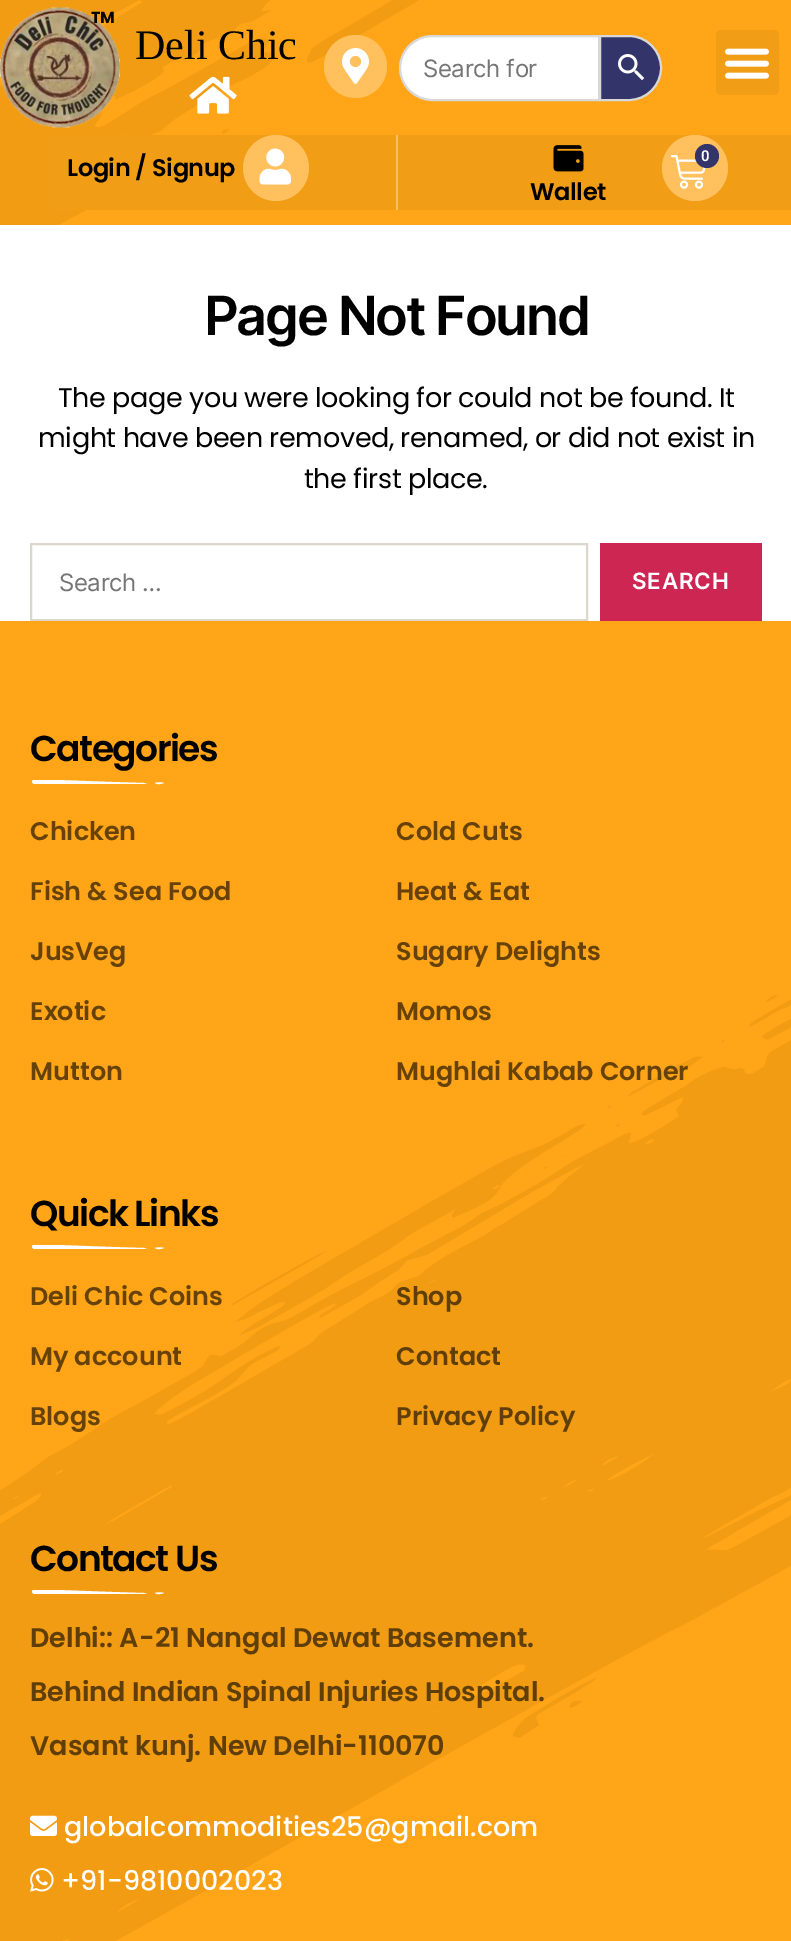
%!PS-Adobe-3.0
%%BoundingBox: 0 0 791 1941
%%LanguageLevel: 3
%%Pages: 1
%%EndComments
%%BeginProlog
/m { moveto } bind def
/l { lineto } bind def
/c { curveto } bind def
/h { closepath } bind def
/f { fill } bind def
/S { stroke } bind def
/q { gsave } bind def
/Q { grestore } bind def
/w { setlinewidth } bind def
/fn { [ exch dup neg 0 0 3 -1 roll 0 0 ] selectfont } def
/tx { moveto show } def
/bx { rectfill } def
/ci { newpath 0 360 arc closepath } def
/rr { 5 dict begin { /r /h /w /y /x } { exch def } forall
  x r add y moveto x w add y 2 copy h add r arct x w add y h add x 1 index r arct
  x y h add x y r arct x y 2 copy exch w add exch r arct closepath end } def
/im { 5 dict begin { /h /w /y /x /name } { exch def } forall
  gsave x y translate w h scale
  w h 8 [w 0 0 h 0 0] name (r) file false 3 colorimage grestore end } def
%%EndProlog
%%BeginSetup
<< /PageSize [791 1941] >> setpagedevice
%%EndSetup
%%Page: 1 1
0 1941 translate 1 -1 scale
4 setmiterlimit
1 setgray
0 0 791 1941 bx
1 0.647 0.09 setrgbcolor
0 0 791 225 bx
(image0.raw) 0 0 436 225 im
(image1.raw) 0 7 120 121 im
/Poppins-Bold 16 fn
0 setgray
91 23 m -0.4 0 (TM) ashow
/LiberationSerif-Regular 42 fn
(Deli Chic) 135 59 tx
(image2.raw) 189 76 48 38 im
1 0.753 0.365 setrgbcolor
355.5 66.5 31.5 ci f
(image3.raw) 342 48 27 36 im
0.2 0.204 0.416 setrgbcolor
600 36 m 629 36 l 646.5 36 661 50.5 661 68 c 661 85.5 646.5 100 629 100 c 600 100 l h q f Q
0.847 setgray
2 w
S
1 setgray
432 36 m 599 36 l 599 100 l 432 100 l 414.5 100 400 85.5 400 68 c 400 50.5 414.5 36 432 36 c h q f Q
0.847 setgray
S
/Inter-Regular 24 fn
0.459 setgray
423 77 m -0.4 0 (Search for) ashow
(image4.raw) 618 54 27 27 im
0.949 0.616 0.086 setrgbcolor
49 135 347 75 bx
/Poppins-SemiBold 24 fn
0 setgray
67 176 m -0.4 0 (Login / Signup) ashow
1 0.753 0.365 setrgbcolor
276 168 33 ci f
(image5.raw) 259 148 32 37 im
0.949 0.616 0.086 setrgbcolor
398 135 393 75 bx
1 0.753 0.365 setrgbcolor
396 135 2 75 bx
695 168 33 ci f
(image6.raw) 670 155 36 34 im
0.2 0.204 0.416 setrgbcolor
707 156 12 ci f
/Roboto-SemiBold 15 fn
1 setgray
(0) 701 161 tx
(image7.raw) 553 145 31 27 im
/Poppins-SemiBold 24 fn
0 setgray
530 200 m -0.4 0 (Wallet) ashow
0.949 0.616 0.086 setrgbcolor
716 30 63 65 5 rr f
(image8.raw) 725 48 44 31 im
/Inter-SemiBold 54 fn
0 setgray
204 335 m -2.25 0 (Page Not Found) ashow
/Poppins-Regular 27 fn
58 407 m -0.4 0 (The page you were looking for could not be found. It) ashow
38 447 m -0.4 0 (might have been removed, renamed, or did not exist in) ashow
304 488 m -0.4 0 (the first place.) ashow
0.863 0.843 0.792 setrgbcolor
31 544 556 76 rectstroke
/Inter-Regular 24 fn
0.459 setgray
59 591 m -0.4 0 (Search …) ashow
0.804 0.149 0.325 setrgbcolor
600 543 162 78 bx
/Inter-SemiBold 22.5 fn
1 setgray
632 589 m 0.75 0 (SEARCH) ashow
1 0.647 0.09 setrgbcolor
0 621 791 1320 bx
(image9.raw) 0 995 791 946 im
/Poppins-SemiBold 36 fn
0 setgray
30 761 m -1.5 0 (Categories) ashow
q
32 780 132 5 rectclip
1 setgray
32 781 m 31 778 72 781 144 783 c 147 784 l 111 784 l 35 784 l 33 784 32 783 32 781 c h 155 783 m 158 782 161 782 164 783 c 161 784 158 785 155 783 c h eofill
Q
/Poppins-SemiBold 25.5 fn
0.4 0.259 0.035 setrgbcolor
(Chicken) 30 840 tx
(Cold Cuts) 396 840 tx
(Fish & Sea Food) 30 900 tx
(Heat & Eat) 396 900 tx
(JusVeg) 30 960 tx
(Sugary Delights) 396 960 tx
(Exotic) 30 1020 tx
(Momos) 396 1020 tx
(Mutton) 30 1080 tx
(Mughlai Kabab Corner) 396 1080 tx
/Poppins-SemiBold 36 fn
0 setgray
30 1226 m -1.5 0 (Quick Links) ashow
q
32 1245 132 5 rectclip
1 setgray
32 1246 m 31 1243 72 1246 144 1248 c 147 1249 l 111 1249 l 35 1249 l 33 1249 32 1248 32 1246 c h 155 1248 m 158 1247 161 1247 164 1248 c 161 1249 158 1250 155 1248 c h eofill
Q
/Poppins-SemiBold 25.5 fn
0.4 0.259 0.035 setrgbcolor
(Deli Chic Coins) 30 1305 tx
0.376 0.243 0.027 setrgbcolor
(Shop) 396 1305 tx
0.4 0.259 0.035 setrgbcolor
(My account) 30 1365 tx
0.376 0.243 0.027 setrgbcolor
(Contact) 396 1365 tx
0.4 0.259 0.035 setrgbcolor
(Blogs) 30 1425 tx
0.376 0.243 0.027 setrgbcolor
(Privacy Policy) 396 1425 tx
/Poppins-SemiBold 36 fn
0 setgray
30 1571 m -1.5 0 (Contact Us) ashow
q
32 1590 132 5 rectclip
1 setgray
32 1591 m 31 1588 72 1591 144 1593 c 147 1594 l 111 1594 l 35 1594 l 33 1594 32 1593 32 1591 c h 155 1593 m 158 1592 161 1592 164 1593 c 161 1594 158 1595 155 1593 c h eofill
Q
/Poppins-SemiBold 27 fn
0.376 0.243 0.027 setrgbcolor
(Delhi:: A-21 Nangal Dewat Basement.) 30 1647 tx
(Behind Indian Spinal Injuries Hospital.) 30 1701 tx
(Vasant kunj. New Delhi-110070) 30 1755 tx
(image10.raw) 30 1815 27 21 im
/Poppins-Medium 27 fn
1 setgray
(globalcommodities25@gmail.com) 64 1836 tx
(image11.raw) 30 1868 24 24 im
(+91-9810002023) 61 1890 tx
showpage
%%EOF
